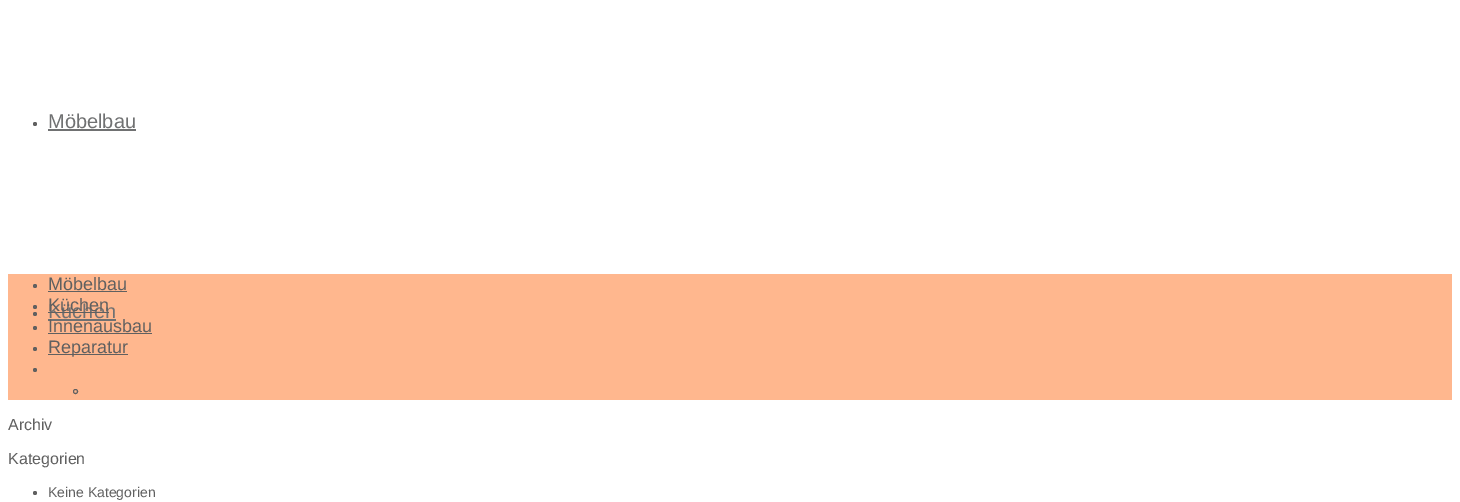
%!PS-Adobe-3.0
%%BoundingBox: 0 0 1460 502
%%LanguageLevel: 3
%%Pages: 1
%%EndComments
%%BeginProlog
/f { fill } bind def
/S { stroke } bind def
/fn { [ exch dup neg 0 0 3 -1 roll 0 0 ] selectfont } def
/tx { moveto show } def
/bx { rectfill } def
/ci { newpath 0 360 arc closepath } def
%%EndProlog
%%BeginSetup
<< /PageSize [1460 502] >> setpagedevice
%%EndSetup
%%Page: 1 1
0 502 translate 1 -1 scale
4 setmiterlimit
1 setgray
0 0 1460 502 bx
0.376 setgray
35 124 2 ci f
/LiberationSans-Regular 20 fn
0.439 0.443 0.447 setrgbcolor
(Möbelbau) 48 128 tx
48 129 88 2 bx
1 0.718 0.557 setrgbcolor
8 274 1444 126 bx
0.376 setgray
35 314 2 ci f
0.439 0.443 0.447 setrgbcolor
(Küchen) 48 318 tx
48 319 68 2 bx
0.376 setgray
35 286 2 ci f
/LiberationSans-Regular 18 fn
(Möbelbau) 48 290 tx
48 291 79 1 bx
35 307 2 ci f
(Küchen) 48 311 tx
48 312 61 1 bx
35 328 2 ci f
(Innenausbau) 48 332 tx
48 333 104 1 bx
35 349 2 ci f
48 354 80 1 bx
(Reparatur) 48 353 tx
35 370 2 ci f
75.5 391.5 2 ci S
/LiberationSans-Regular 16 fn
(Archiv) 8 430 tx
(Kategorien) 8 464 tx
35 493 2 ci f
/LiberationSans-Regular 14 fn
(Keine Kategorien) 48 497 tx
showpage
%%EOF
